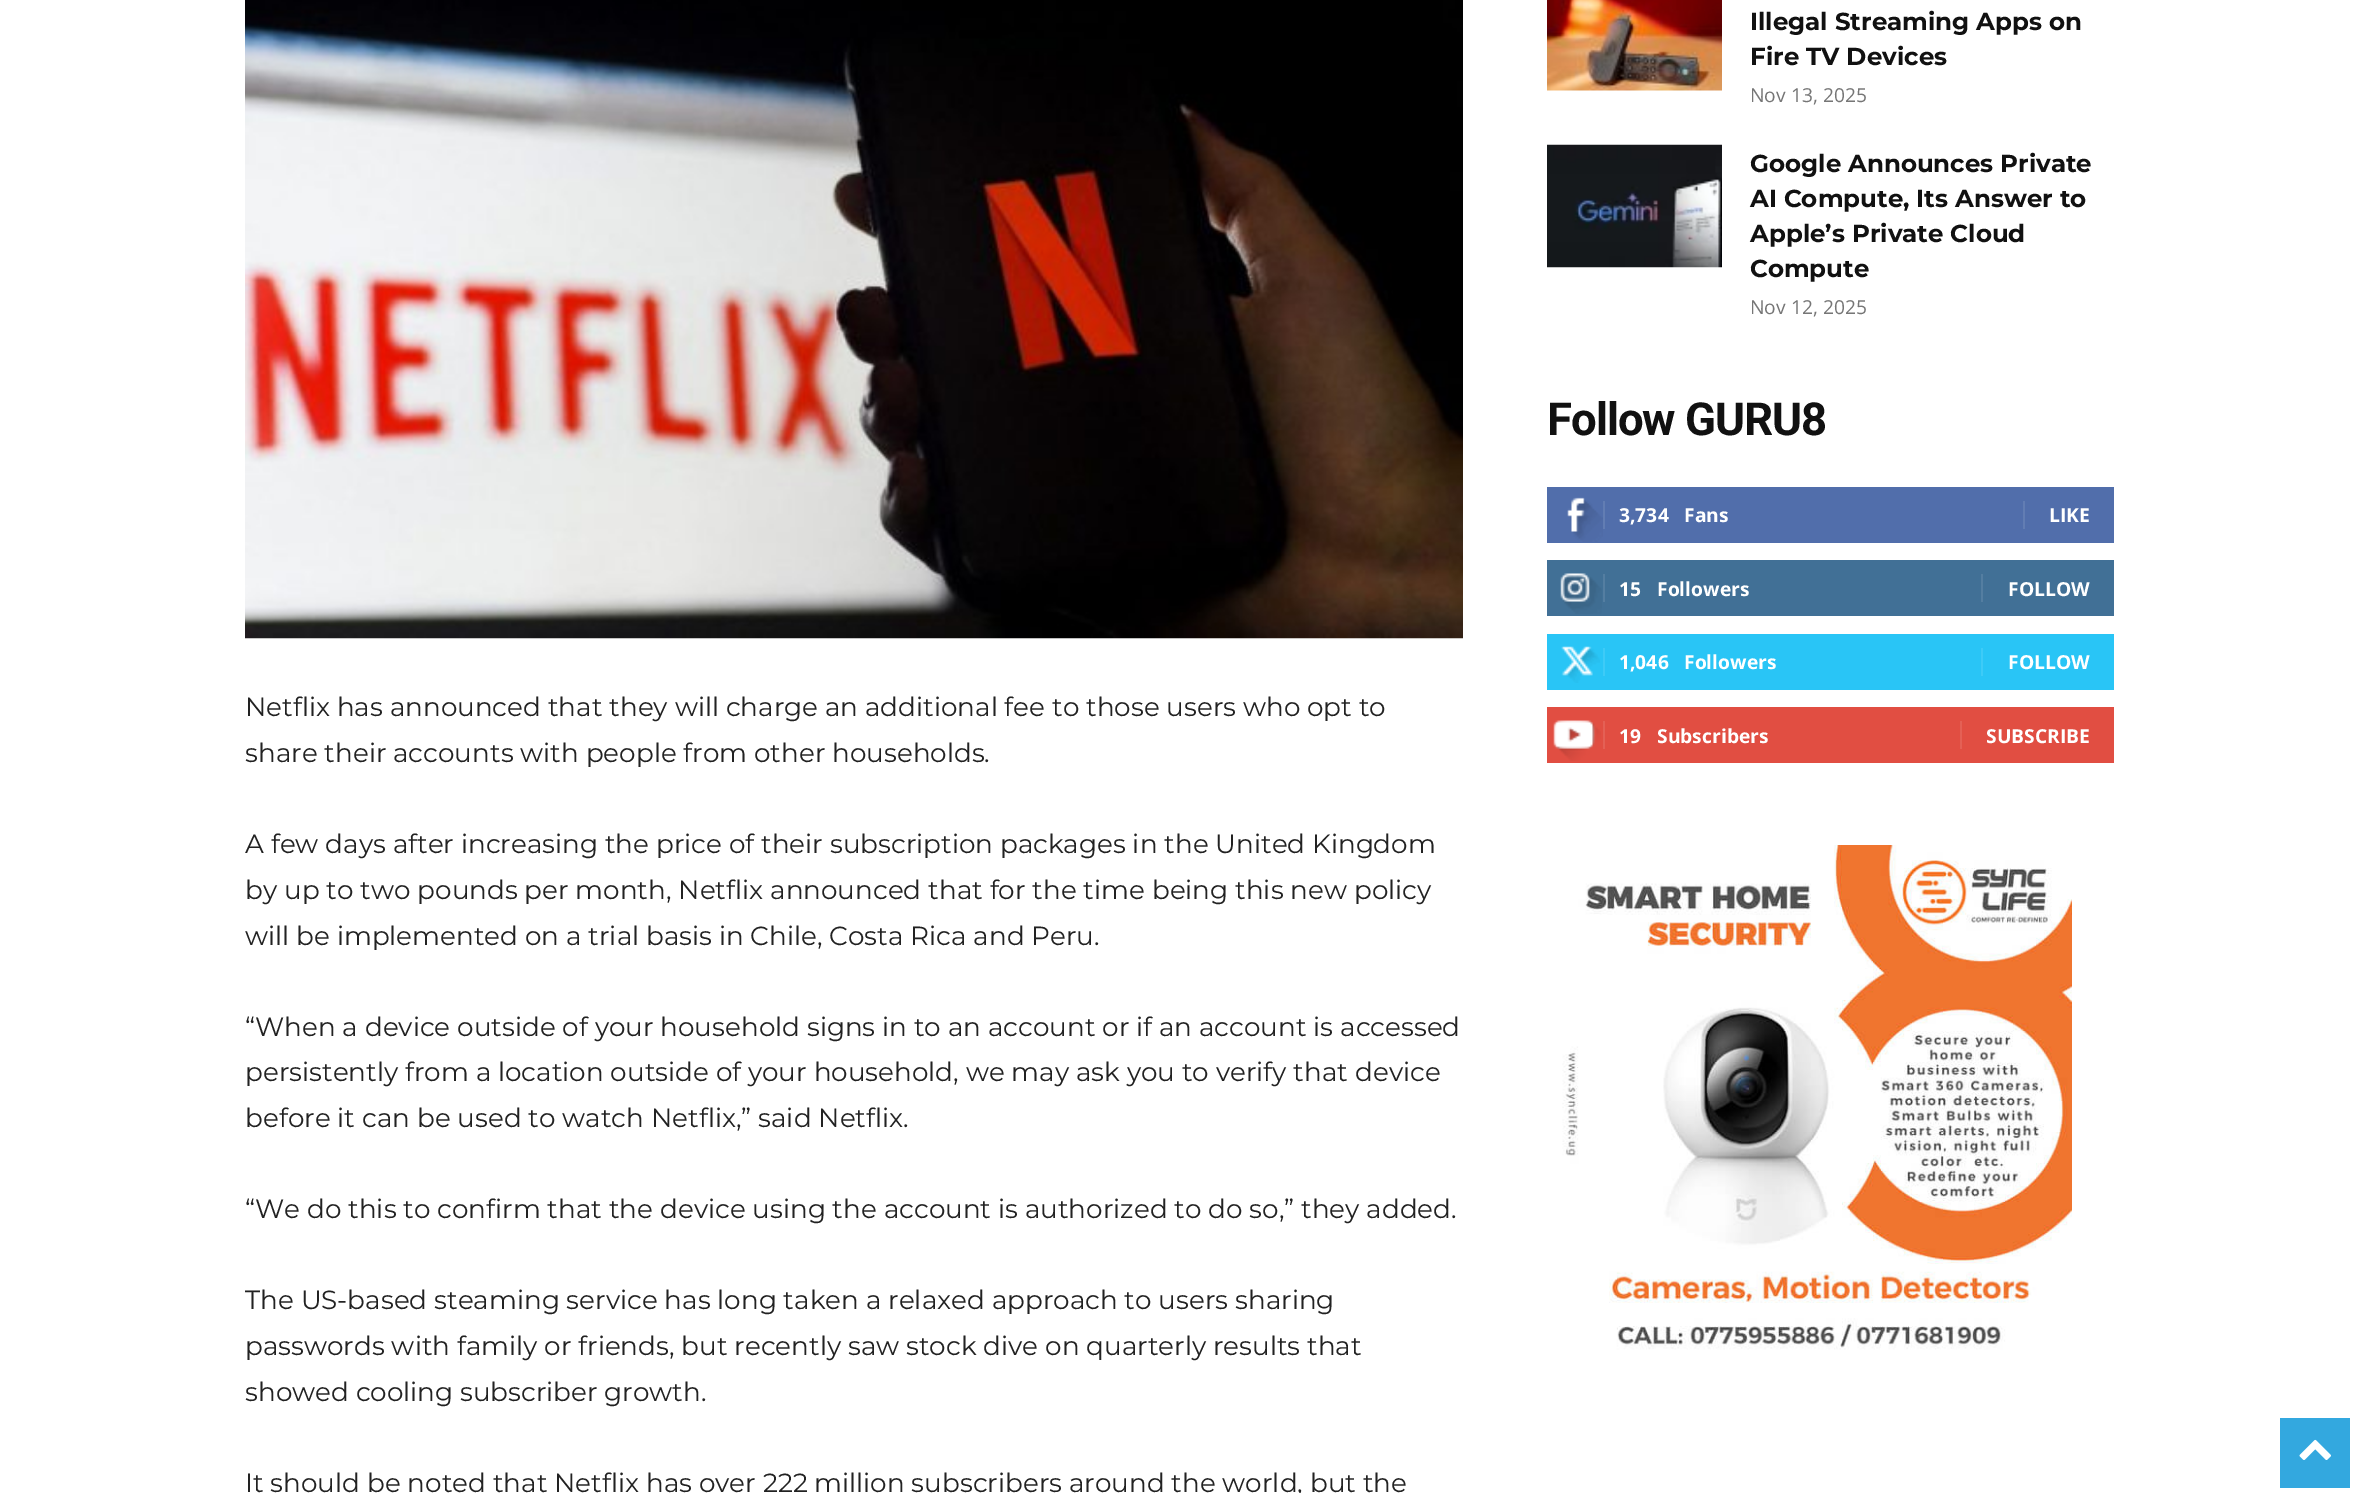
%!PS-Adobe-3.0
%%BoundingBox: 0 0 2359 1493
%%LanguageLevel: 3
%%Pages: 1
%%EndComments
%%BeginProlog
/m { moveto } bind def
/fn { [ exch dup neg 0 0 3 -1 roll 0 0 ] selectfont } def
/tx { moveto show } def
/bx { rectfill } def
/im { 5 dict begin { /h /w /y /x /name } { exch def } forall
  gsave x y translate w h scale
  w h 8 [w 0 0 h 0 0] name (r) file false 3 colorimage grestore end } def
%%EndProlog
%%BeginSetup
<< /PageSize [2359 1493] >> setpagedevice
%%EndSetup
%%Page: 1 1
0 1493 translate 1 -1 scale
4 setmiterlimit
1 setgray
0 0 2359 1493 bx
(image0.raw) 1547 0 175 91 im
/Montserrat-Bold 24.5 fn
0.067 setgray
(Illegal Streaming Apps on) 1750 30 tx
(Fire TV Devices) 1750 65 tx
/OpenSans-Regular 19.25 fn
0.463 setgray
(Nov 13, 2025) 1750 102 tx
(image1.raw) 1547 144 175 124 im
/Montserrat-Bold 24.5 fn
0.067 setgray
(Google Announces Private) 1750 172 tx
(AI Compute, Its Answer to) 1750 207 tx
(Apple’s Private Cloud) 1750 242 tx
(Compute) 1750 277 tx
/OpenSans-Regular 19.25 fn
0.463 setgray
(Nov 12, 2025) 1750 314 tx
/Roboto-Bold 45.5 fn
0.067 setgray
1547 435 m -1 0 (Follow GURU8) ashow
0.318 0.431 0.671 setrgbcolor
1547 487 567 56 bx
(image2.raw) 1567 497 36 45 im
0.384 0.49 0.702 setrgbcolor
1603 501 2 28 bx
/OpenSans-Bold 19.25 fn
1 setgray
(3,734) 1619 522 tx
(Fans) 1684 522 tx
0.384 0.49 0.702 setrgbcolor
2023 501 2 28 bx
1 setgray
(LIKE) 2049 522 tx
0.255 0.439 0.588 setrgbcolor
1547 560 567 56 bx
(image3.raw) 1560 573 42 41 im
0.329 0.494 0.631 setrgbcolor
1603 574 2 28 bx
1 setgray
(15) 1619 596 tx
(Followers) 1657 596 tx
0.329 0.494 0.631 setrgbcolor
1981 574 2 28 bx
1 setgray
(FOLLOW) 2008 596 tx
0.161 0.773 0.965 setrgbcolor
1547 634 567 56 bx
(image4.raw) 1561 646 39 37 im
0.243 0.796 0.969 setrgbcolor
1603 648 2 28 bx
1 setgray
(1,046) 1619 669 tx
(Followers) 1684 669 tx
0.243 0.796 0.969 setrgbcolor
1981 648 2 28 bx
1 setgray
(FOLLOW) 2008 669 tx
0.882 0.306 0.259 setrgbcolor
1547 707 567 56 bx
(image5.raw) 1553 720 48 41 im
0.894 0.376 0.333 setrgbcolor
1603 721 2 28 bx
1 setgray
(19) 1619 743 tx
(Subscribers) 1657 743 tx
0.894 0.376 0.333 setrgbcolor
1960 721 2 28 bx
1 setgray
(SUBSCRIBE) 1986 743 tx
(image6.raw) 1562 845 510 505 im
(image7.raw) 245 0 1218 639 im
/Montserrat-Regular 26.25 fn
0.133 setgray
(Netflix has announced that they will charge an additional fee to those users who opt to) 245 716 tx
(share their accounts with people from other households.) 245 762 tx
(A few days after increasing the price of their subscription packages in the United Kingdom) 245 853 tx
(by up to two pounds per month, Netflix announced that for the time being this new policy) 245 899 tx
(will be implemented on a trial basis in Chile, Costa Rica and Peru.) 245 945 tx
(“When a device outside of your household signs in to an account or if an account is accessed) 245 1036 tx
(persistently from a location outside of your household, we may ask you to verify that device) 245 1081 tx
(before it can be used to watch Netflix,” said Netflix.) 245 1127 tx
(“We do this to confirm that the device using the account is authorized to do so,” they added.) 245 1218 tx
(The US-based steaming service has long taken a relaxed approach to users sharing) 245 1309 tx
(passwords with family or friends, but recently saw stock dive on quarterly results that) 245 1355 tx
(showed cooling subscriber growth.) 245 1401 tx
(It should be noted that Netflix has over 222 million subscribers around the world, but the) 245 1492 tx
0.2 0.659 0.875 setrgbcolor
2280 1418 70 70 bx
(image8.raw) 2299 1439 32 21 im
showpage
%%EOF
